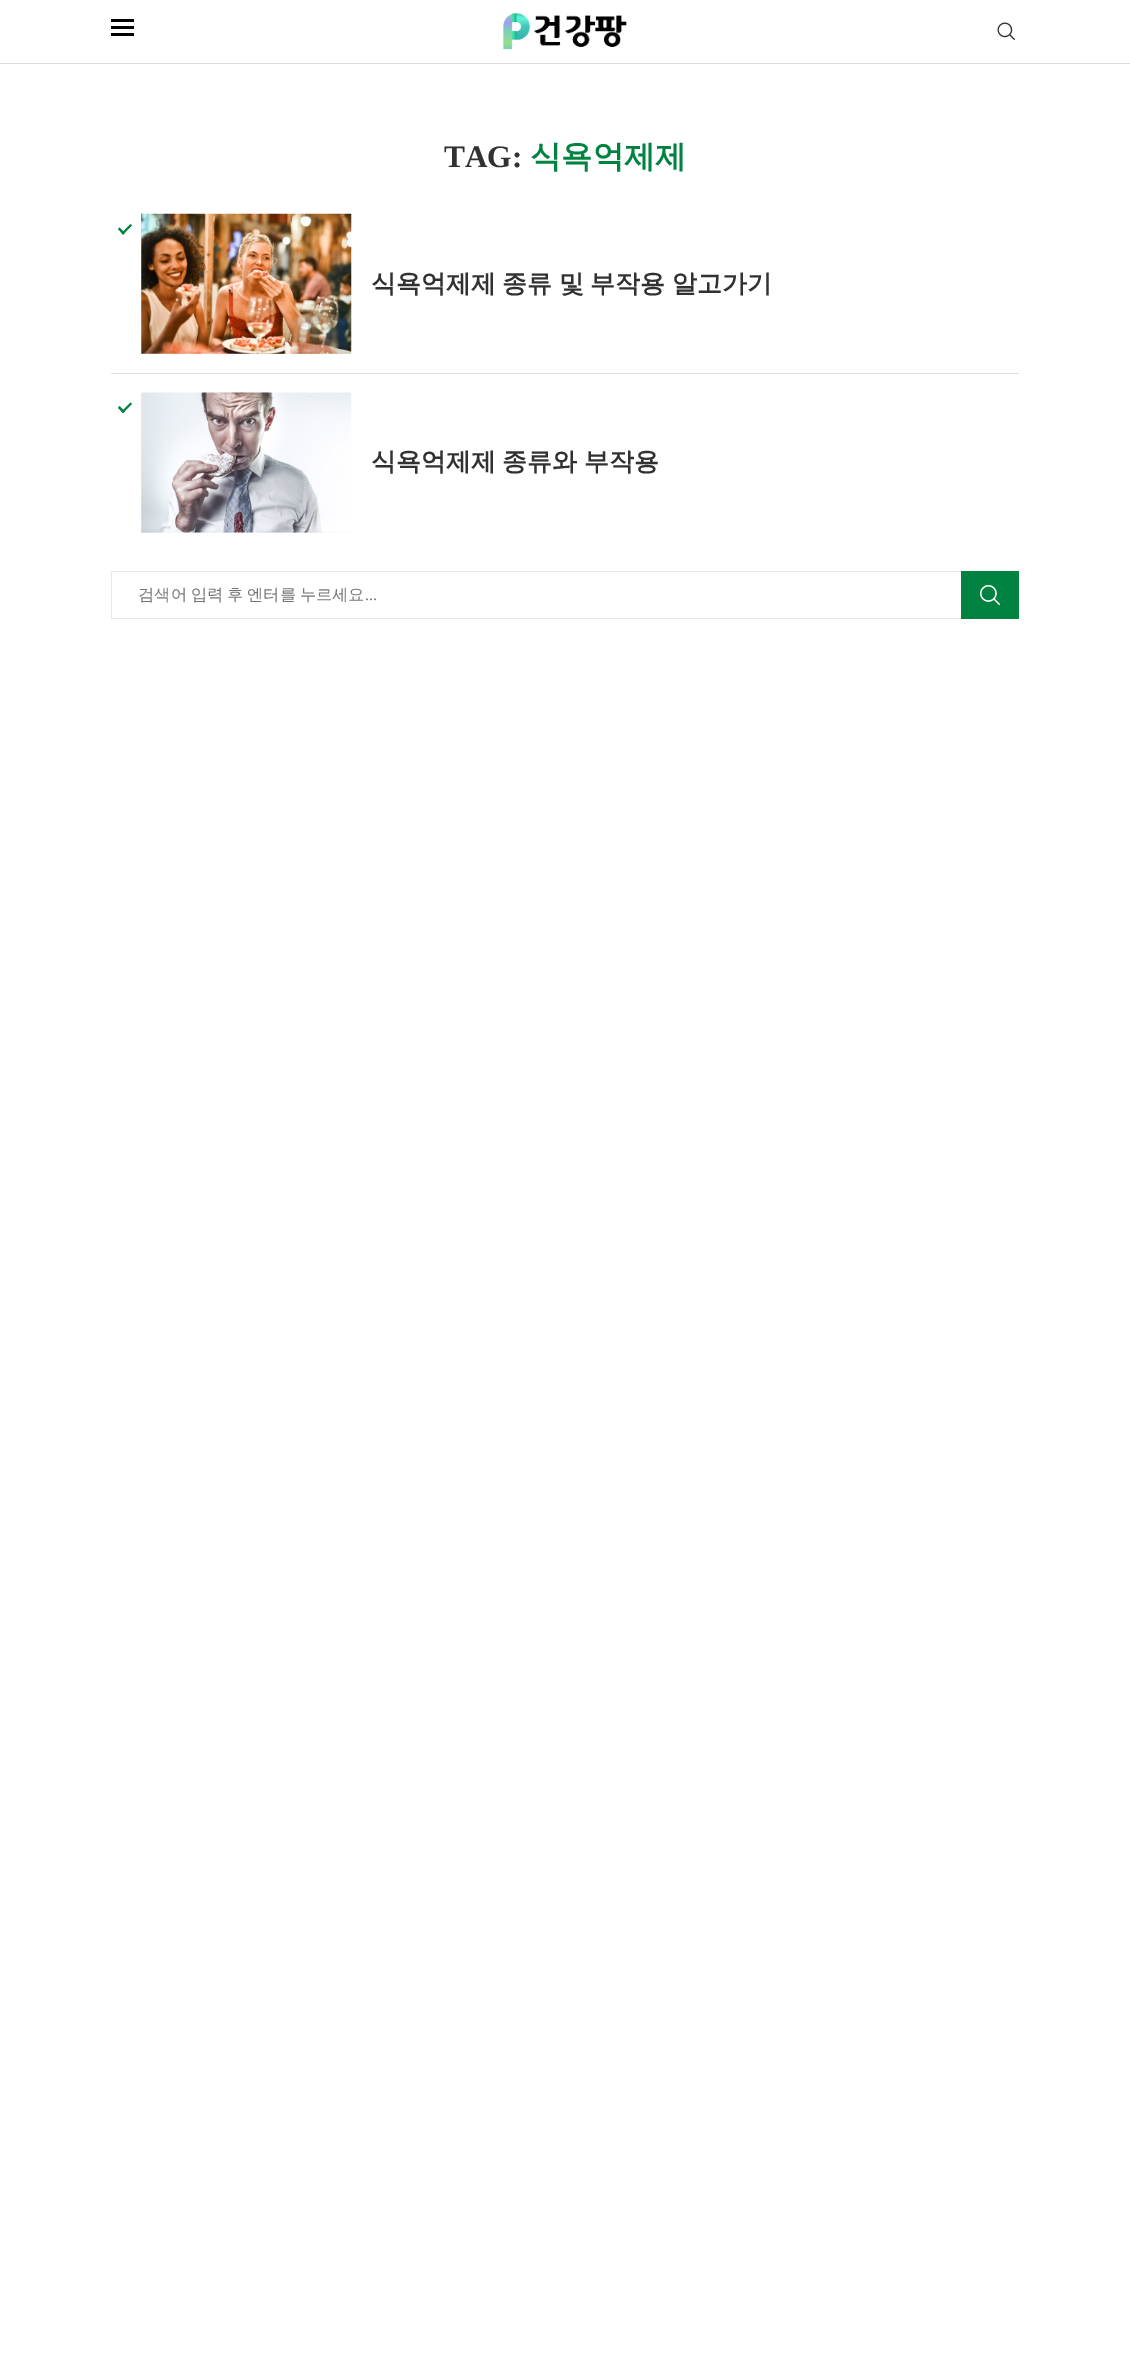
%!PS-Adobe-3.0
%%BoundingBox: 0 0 1130 2379
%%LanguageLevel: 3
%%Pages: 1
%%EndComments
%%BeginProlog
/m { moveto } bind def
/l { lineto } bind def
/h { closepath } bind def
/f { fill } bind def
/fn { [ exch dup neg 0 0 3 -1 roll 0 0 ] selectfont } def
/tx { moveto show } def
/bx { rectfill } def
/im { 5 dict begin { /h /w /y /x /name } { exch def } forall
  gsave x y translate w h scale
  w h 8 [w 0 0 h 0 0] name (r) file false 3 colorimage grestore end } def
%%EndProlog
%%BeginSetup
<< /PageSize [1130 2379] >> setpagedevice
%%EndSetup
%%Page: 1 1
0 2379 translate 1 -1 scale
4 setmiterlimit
1 setgray
0 0 1130 2379 bx
0.871 setgray
0 63 1130 1 bx
0 setgray
111 19 23 3 bx
111 26 23 3 bx
111 33 23 3 bx
(image0.raw) 503 13 124 37 im
(image1.raw) 997 22 18 18 im
/LiberationSerif-Bold 31.25 fn
0.192 setgray
(TAG:) 444 167 tx
/WenQuanYiZenHei-Bold 31.25 fn
0 0.51 0.251 setrgbcolor
(식욕억제제) 530 167 tx
0.871 setgray
111 373 908 1 bx
0 0.51 0.251 setrgbcolor
121.5 233 m 130.5 224 l 132 225.5 l 123 234.5 l h f
118 229 m 119.5 227.5 l 125 233 l 123 234.5 l h f
0.961 setgray
141 214 210 140 bx
(image2.raw) 141 213 211 141 im
/WenQuanYiZenHei-Bold 25 fn
0.192 setgray
371 292 m -1 0 32 (식욕억제제 종류 및 부작용 알고가기) widthshow
0 0.51 0.251 setrgbcolor
121.5 411.5 m 130.5 402.5 l 132 404 l 123 413 l h f
118 408 m 119.5 406 l 125 411.5 l 123 413 l h f
0.961 setgray
141 393 210 140 bx
(image3.raw) 141 392 211 141 im
0.192 setgray
371 470 m -1 0 32 (식욕억제제 종류와 부작용) widthshow
0.914 setgray
111 571 850 1 bx
111 618 850 1 bx
111 571 1 48 bx
/WenQuanYiZenHei-Medium 16.25 fn
0.459 setgray
138 600 m -1 0 32 (검색어 입력 후 엔터를 누르세요) widthshow
/LiberationSerif-Regular 16.25 fn
(...) 365 600 tx
0 0.51 0.251 setrgbcolor
961 571 58 48 bx
(image4.raw) 980 585 20 20 im
showpage
%%EOF
